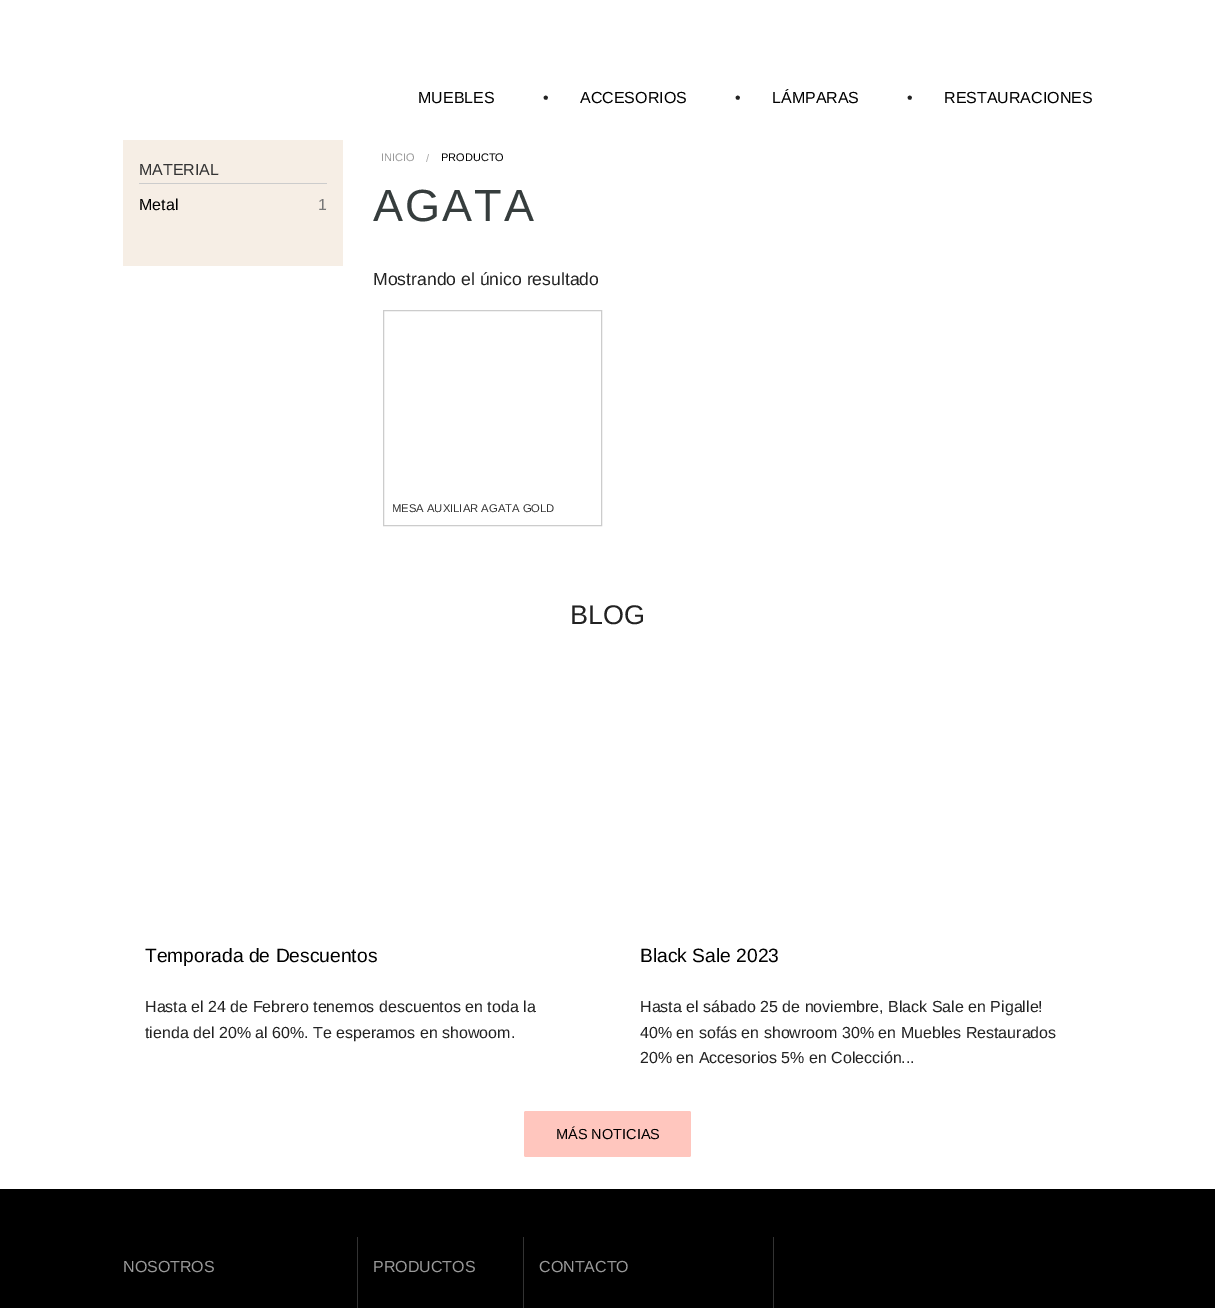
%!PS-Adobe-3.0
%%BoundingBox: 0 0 1215 1308
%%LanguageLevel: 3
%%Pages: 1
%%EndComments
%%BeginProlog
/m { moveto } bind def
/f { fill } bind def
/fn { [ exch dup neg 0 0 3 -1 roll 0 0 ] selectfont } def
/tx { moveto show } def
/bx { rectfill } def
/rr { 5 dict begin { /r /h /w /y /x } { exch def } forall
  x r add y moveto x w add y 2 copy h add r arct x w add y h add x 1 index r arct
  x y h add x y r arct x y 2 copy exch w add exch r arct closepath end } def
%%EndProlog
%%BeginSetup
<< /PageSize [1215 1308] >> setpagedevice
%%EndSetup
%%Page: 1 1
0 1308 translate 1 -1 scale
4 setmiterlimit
1 setgray
0 0 1215 1308 bx
/LiberationSans-Regular 16 fn
0 setgray
(MUEBLES) 418 103 tx
0.133 setgray
(•) 543 103 tx
0 setgray
(ACCESORIOS) 580 103 tx
0.133 setgray
(•) 735 103 tx
0 setgray
(LÁMPARAS) 772 103 tx
0.133 setgray
(•) 907 103 tx
0 setgray
(RESTAURACIONES) 944 103 tx
0.965 0.933 0.898 setrgbcolor
123 140 220 126 bx
0.8 setgray
139 183 188 1 bx
0.2 setgray
(MATERIAL) 139 175 tx
0 setgray
(Metal) 139 210 tx
0.467 setgray
(1) 318 210 tx
/LiberationSans-Regular 11 fn
0.6 setgray
(INICIO) 381 161 tx
0.667 setgray
(/) 426 162 tx
0 setgray
(PRODUCTO) 441 161 tx
/LiberationSans-Regular 45 fn
0.212 0.239 0.239 setrgbcolor
373 221 m 2 0 (AGATA) ashow
/LiberationSans-Regular 17.6 fn
0.133 setgray
(Mostrando el único resultado) 373 285 tx
0.8 setgray
383.5 310.5 218 215 rectstroke
/LiberationSans-Regular 11.25 fn
0.2 setgray
(MESA AUXILIAR AGATA GOLD) 392 512 tx
/LiberationSans-Regular 27 fn
0.133 setgray
(BLOG) 570 624 tx
/LiberationSans-Regular 19.25 fn
0 setgray
(Temporada de Descuentos) 145 962 tx
/LiberationSans-Regular 16 fn
0.133 setgray
(Hasta el 24 de Febrero tenemos descuentos en toda la) 145 1012 tx
(tienda del 20% al 60%. Te esperamos en showoom.) 145 1038 tx
/LiberationSans-Regular 19.25 fn
0 setgray
(Black Sale 2023) 640 962 tx
/LiberationSans-Regular 16 fn
0.133 setgray
(Hasta el sábado 25 de noviembre, Black Sale en Pigalle!) 640 1012 tx
(40% en sofás en showroom 30% en Muebles Restaurados) 640 1038 tx
(20% en Accesorios 5% en Colección...) 640 1063 tx
1 0.776 0.745 setrgbcolor
524 1111 167 46 2 rr f
/LiberationSans-Regular 14.5 fn
0 setgray
(MÁS NOTICIAS) 556 1139 tx
0 1189 1215 119 bx
0.2 setgray
357 1237 1 71 bx
/LiberationSans-Regular 16 fn
0.6 setgray
(NOSOTROS) 123 1272 tx
0.2 setgray
523 1237 1 71 bx
0.6 setgray
(PRODUCTOS) 373 1272 tx
0.2 setgray
773 1237 1 71 bx
0.6 setgray
(CONTACTO) 539 1272 tx
showpage
%%EOF
